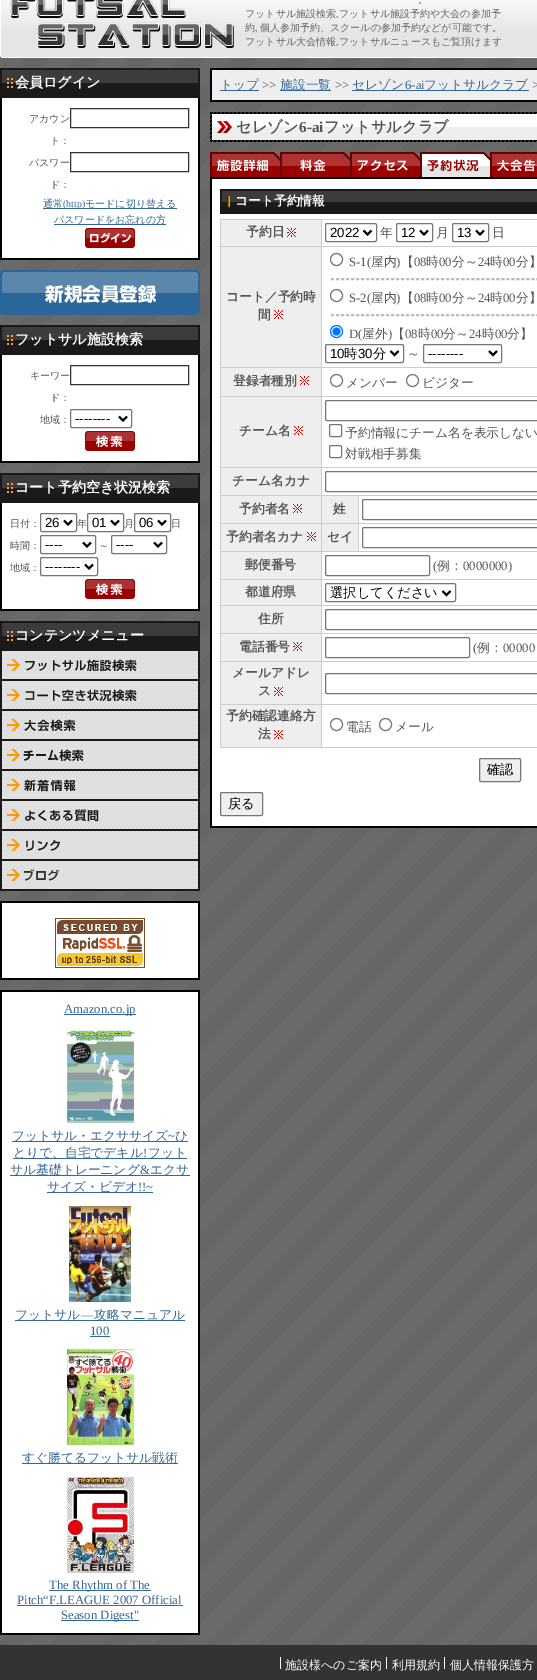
%!PS-Adobe-3.0
%%BoundingBox: 0 0 537 1680
%%LanguageLevel: 3
%%Pages: 1
%%EndComments
%%BeginProlog
/m { moveto } bind def
/l { lineto } bind def
/f { fill } bind def
/S { stroke } bind def
/q { gsave } bind def
/Q { grestore } bind def
/w { setlinewidth } bind def
/fn { [ exch dup neg 0 0 3 -1 roll 0 0 ] selectfont } def
/tx { moveto show } def
/bx { rectfill } def
/ci { newpath 0 360 arc closepath } def
/rr { 5 dict begin { /r /h /w /y /x } { exch def } forall
  x r add y moveto x w add y 2 copy h add r arct x w add y h add x 1 index r arct
  x y h add x y r arct x y 2 copy exch w add exch r arct closepath end } def
/im { 5 dict begin { /h /w /y /x /name } { exch def } forall
  gsave x y translate w h scale
  w h 8 [w 0 0 h 0 0] name (r) file false 3 colorimage grestore end } def
%%EndProlog
%%BeginSetup
<< /PageSize [537 1680] >> setpagedevice
%%EndSetup
%%Page: 1 1
0 1680 translate 1 -1 scale
4 setmiterlimit
1 setgray
0 0 537 1680 bx
(image0.raw) 0 58 537 1587 im
(image1.raw) 0 0 537 58 im
(image2.raw) 10 0 224 48 im
/WenQuanYiZenHei-Medium 10 fn
0.4 setgray
(。) 418 3 tx
(フットサル施設検索) 245 17 tx
/LiberationSerif-Regular 10 fn
(,) 336 17 tx
/WenQuanYiZenHei-Medium 10 fn
(フットサル施設予約や大会の参加予) 339 17 tx
(約) 245 31 tx
/LiberationSerif-Regular 10 fn
(,) 255 31 tx
/WenQuanYiZenHei-Medium 10 fn
(個人参加予約、スクールの参加予約などが可能です。) 260 31 tx
(フットサル大会情報) 245 45 tx
/LiberationSerif-Regular 10 fn
(,) 336 45 tx
/WenQuanYiZenHei-Medium 10 fn
(フットサルニュースもご覧頂けます) 339 45 tx
(image3.raw) 0 98 200 160 im
0 setgray
0 258 200 2 bx
(image4.raw) 0 68 200 30 im
/WenQuanYiZenHei-Bold 14 fn
1 setgray
(会員ログイン) 15 87 tx
/WenQuanYiZenHei-Medium 10 fn
0.333 setgray
(アカウン) 29 122 tx
(ト：) 50 144 tx
0.2 setgray
70.5 108.5 118 19 rectstroke
0.333 setgray
(パスワー) 29 166 tx
(ド：) 50 188 tx
0.2 setgray
70.5 152.5 118 19 rectstroke
0.2 0.4 0.6 setrgbcolor
43 208 134 1 bx
(通常) 43 207 tx
/LiberationSerif-Regular 10 fn
(\(http\)) 63 207 tx
/WenQuanYiZenHei-Medium 10 fn
(モードに切り替える) 85 207 tx
54 224 112 1 bx
(パスワードをお忘れの方) 54 223 tx
(image5.raw) 85 228 50 20 im
(image6.raw) 0 270 200 45 im
(image7.raw) 0 355 200 106 im
0 setgray
0 461 200 2 bx
(image4.raw) 0 325 200 30 im
/WenQuanYiZenHei-Bold 14 fn
1 setgray
(フットサル施設検索) 15 344 tx
/WenQuanYiZenHei-Medium 10 fn
0.333 setgray
(キーワー) 30 379 tx
(ド：) 50 401 tx
0.2 setgray
70.5 365.5 118 19 rectstroke
0.333 setgray
(地域：) 40 423 tx
0.463 setgray
70.5 409.5 61 18 1.5 rr S
0 setgray
2 w
119 416.5 m 123 420.5 l 127 416.5 l S
/LiberationSans-Regular 13.25 fn
(--------) 75 423 tx
(image8.raw) 85 431 50 20 im
(image7.raw) 0 503 200 106 im
0 609 200 2 bx
(image4.raw) 0 473 200 30 im
/WenQuanYiZenHei-Bold 14 fn
1 setgray
(コート予約空き状況検索) 15 492 tx
/WenQuanYiZenHei-Medium 10 fn
0.333 setgray
(日付：) 10 527 tx
0.463 setgray
1 w
40.5 513.5 36 18 1.5 rr S
0 setgray
2 w
64 520.5 m 68 524.5 l 72 520.5 l S
/LiberationSans-Regular 13.25 fn
(26) 45 527 tx
/WenQuanYiZenHei-Medium 10 fn
0.333 setgray
(年) 77 527 tx
0.463 setgray
1 w
87.5 513.5 36 18 1.5 rr S
0 setgray
2 w
111 520.5 m 115 524.5 l 119 520.5 l S
/LiberationSans-Regular 13.25 fn
(01) 92 527 tx
/WenQuanYiZenHei-Medium 10 fn
0.333 setgray
(月) 124 527 tx
0.463 setgray
1 w
134.5 513.5 36 18 1.5 rr S
0 setgray
2 w
158 520.5 m 162 524.5 l 166 520.5 l S
/LiberationSans-Regular 13.25 fn
(06) 139 527 tx
/WenQuanYiZenHei-Medium 10 fn
0.333 setgray
(日) 171 527 tx
(時間：) 10 549 tx
0.463 setgray
1 w
40.5 535.5 55 18 1.5 rr S
0 setgray
2 w
83 542.5 m 87 546.5 l 91 542.5 l S
/LiberationSans-Regular 13.25 fn
(----) 45 549 tx
/WenQuanYiZenHei-Medium 10 fn
0.333 setgray
(～) 99 549 tx
0.463 setgray
1 w
111.5 535.5 55 18 1.5 rr S
0 setgray
2 w
154 542.5 m 158 546.5 l 162 542.5 l S
/LiberationSans-Regular 13.25 fn
(----) 116 549 tx
/WenQuanYiZenHei-Medium 10 fn
0.333 setgray
(地域：) 10 571 tx
0.463 setgray
1 w
40.5 557.5 57 18 1.5 rr S
0 setgray
2 w
85 564.5 m 89 568.5 l 93 564.5 l S
/LiberationSans-Regular 13.25 fn
(--------) 45 571 tx
(image8.raw) 85 579 50 20 im
(image4.raw) 0 621 200 30 im
/WenQuanYiZenHei-Bold 14 fn
1 setgray
(コンテンツメニュー) 15 640 tx
(image9.raw) 0 651 200 30 im
(image10.raw) 2 651 196 28 im
(image11.raw) 0 681 200 30 im
(image12.raw) 2 681 196 28 im
(image13.raw) 0 711 200 30 im
(image14.raw) 2 711 196 28 im
(image15.raw) 0 741 200 30 im
(image16.raw) 2 741 196 28 im
(image17.raw) 0 771 200 30 im
(image18.raw) 2 771 196 28 im
(image19.raw) 0 801 200 30 im
(image20.raw) 2 801 196 28 im
(image21.raw) 0 831 200 30 im
(image22.raw) 2 831 196 28 im
(image23.raw) 0 861 200 30 im
(image24.raw) 2 861 196 28 im
(image25.raw) 0 903 200 75 im
0 setgray
0 901 200 2 bx
0 978 200 2 bx
(image26.raw) 55 918 90 50 im
(image27.raw) 0 992 200 641 im
0 990 200 2 bx
0 1633 200 2 bx
0.2 0.4 0.6 setrgbcolor
64 1014 72 1 bx
/LiberationSerif-Regular 12.75 fn
(Amazon.co.jp) 64 1013 tx
(image28.raw) 67 1027 67 96 im
12 1141 176 1 bx
/WenQuanYiZenHei-Medium 12.75 fn
(フットサル・エクササイズ) 12 1140 tx
/LiberationSerif-Regular 12.75 fn
(~) 168 1140 tx
/WenQuanYiZenHei-Medium 12.75 fn
(ひ) 175 1140 tx
13 1158 174 1 bx
(とりで、自宅でデキル) 13 1157 tx
/LiberationSerif-Regular 12.75 fn
(!) 143 1157 tx
/WenQuanYiZenHei-Medium 12.75 fn
(フット) 148 1157 tx
10 1175 180 1 bx
(サル基礎トレーニング) 10 1174 tx
/LiberationSerif-Regular 12.75 fn
(&) 140 1174 tx
/WenQuanYiZenHei-Medium 12.75 fn
(エクサ) 150 1174 tx
47 1192 106 1 bx
(サイズ・ビデオ) 47 1191 tx
/LiberationSerif-Regular 12.75 fn
(!!~) 138 1191 tx
(image29.raw) 69 1206 62 96 im
15 1320 170 1 bx
/WenQuanYiZenHei-Medium 12.75 fn
(フットサル) 15 1319 tx
/LiberationSerif-Regular 12.75 fn
(―) 81 1319 tx
/WenQuanYiZenHei-Medium 12.75 fn
(攻略マニュアル) 94 1319 tx
/LiberationSerif-Regular 12.75 fn
(100) 90 1335 tx
90 1336 20 1 bx
(image30.raw) 67 1349 67 96 im
22 1463 156 1 bx
/WenQuanYiZenHei-Medium 12.75 fn
(すぐ勝てるフットサル戦術) 22 1462 tx
(image31.raw) 67 1477 67 96 im
49 1590 102 1 bx
/LiberationSerif-Regular 12.75 fn
(The Rhythm of The) 49 1589 tx
(Pitch“F.LEAGUE 2007 Official) 17 1604 tx
17 1605 166 1 bx
61 1620 78 1 bx
(Season Digest") 61 1619 tx
(image32.raw) 210 70 327 30 im
0 setgray
210 68 327 2 bx
210 100 327 2 bx
0.2 0.4 0.6 setrgbcolor
220 90 39 1 bx
/WenQuanYiZenHei-Medium 12.75 fn
(トップ) 220 89 tx
/LiberationSerif-Regular 12.75 fn
0.333 setgray
(>>) 262 89 tx
0.2 0.4 0.6 setrgbcolor
280 90 51 1 bx
/WenQuanYiZenHei-Medium 12.75 fn
(施設一覧) 280 89 tx
/LiberationSerif-Regular 12.75 fn
0.333 setgray
(>>) 335 89 tx
0.2 0.4 0.6 setrgbcolor
352 90 177 1 bx
/WenQuanYiZenHei-Medium 12.75 fn
(セレゾン) 352 89 tx
/LiberationSerif-Regular 12.75 fn
(6-ai) 405 89 tx
/WenQuanYiZenHei-Medium 12.75 fn
(フットサルクラブ) 424 89 tx
/LiberationSerif-Regular 12.75 fn
0.333 setgray
(>) 532 89 tx
(image33.raw) 210 112 327 30 im
/WenQuanYiZenHei-Bold 15.25 fn
(セレゾン) 236 132 tx
/LiberationSerif-Bold 15.25 fn
(6-ai) 299 132 tx
/WenQuanYiZenHei-Bold 15.25 fn
(フットサルクラブ) 324 132 tx
(image34.raw) 210 152 70 25 im
(image35.raw) 280 152 70 25 im
(image36.raw) 350 152 70 25 im
(image37.raw) 420 152 70 25 im
(image38.raw) 490 152 47 25 im
(image39.raw) 210 179 327 647 im
0 setgray
210 177 327 2 bx
210 826 327 2 bx
(image40.raw) 220 189 317 25 im
/WenQuanYiZenHei-Bold 12.75 fn
1 setgray
(コート予約情報) 235 205 tx
0.8 setgray
220 219 317 1 bx
220 747 317 1 bx
220 219 1 529 bx
0.933 setgray
221 220 100 26 bx
0.333 setgray
(予約日) 246 236 tx
(image41.raw) 287 228 9 9 im
0.8 setgray
321 246 216 1 bx
321 367 216 1 bx
321 396 216 1 bx
321 467 216 1 bx
358 495 179 1 bx
358 523 179 1 bx
321 551 216 1 bx
358 523 1 29 bx
321 523 38 1 bx
358 495 1 29 bx
321 495 38 1 bx
321 579 216 1 bx
321 605 216 1 bx
321 633 216 1 bx
321 661 216 1 bx
321 704 216 1 bx
321 704 1 44 bx
220 704 102 1 bx
321 661 1 44 bx
220 661 102 1 bx
321 633 1 29 bx
220 633 102 1 bx
321 605 1 29 bx
220 605 102 1 bx
321 579 1 27 bx
220 579 102 1 bx
321 551 1 29 bx
220 551 102 1 bx
321 523 1 29 bx
220 523 102 1 bx
321 495 1 29 bx
220 495 102 1 bx
321 467 1 29 bx
220 467 102 1 bx
321 396 1 72 bx
220 396 102 1 bx
321 367 1 30 bx
220 367 102 1 bx
321 246 1 122 bx
220 246 102 1 bx
321 219 1 28 bx
0.463 setgray
1 w
325.5 223.5 51 18 1.5 rr S
0 setgray
2 w
363.5 230.5 m 367.5 234.5 l 371.5 230.5 l S
/LiberationSans-Regular 13.25 fn
(2022) 330 237 tx
/WenQuanYiZenHei-Medium 12.75 fn
0.333 setgray
(年) 380 237 tx
0.463 setgray
1 w
396.5 223.5 36 18 1.5 rr S
0 setgray
2 w
420 230.5 m 424 234.5 l 428 230.5 l S
/LiberationSans-Regular 13.25 fn
(12) 401 237 tx
/WenQuanYiZenHei-Medium 12.75 fn
0.333 setgray
(月) 436 237 tx
0.463 setgray
1 w
452.5 223.5 36 18 1.5 rr S
0 setgray
2 w
476 230.5 m 480 234.5 l 484 230.5 l S
/LiberationSans-Regular 13.25 fn
(13) 457 237 tx
/WenQuanYiZenHei-Medium 12.75 fn
0.333 setgray
(日) 492 237 tx
0.933 setgray
221 247 100 120 bx
/WenQuanYiZenHei-Bold 12.75 fn
0.333 setgray
(コート／予約時) 226 301 tx
(間) 258 319 tx
(image41.raw) 274 310 9 9 im
0.463 setgray
1 w
336.5 259.5 6 ci S
/LiberationSerif-Regular 12.75 fn
0.333 setgray
(S-1\() 349 266 tx
/WenQuanYiZenHei-Medium 12.75 fn
(屋内) 371 266 tx
/LiberationSerif-Regular 12.75 fn
(\)) 396 266 tx
/WenQuanYiZenHei-Medium 12.75 fn
(【) 401 266 tx
/LiberationSerif-Regular 12.75 fn
(08) 414 266 tx
/WenQuanYiZenHei-Medium 12.75 fn
(時) 426 266 tx
/LiberationSerif-Regular 12.75 fn
(00) 439 266 tx
/WenQuanYiZenHei-Medium 12.75 fn
(分～) 452 266 tx
/LiberationSerif-Regular 12.75 fn
(24) 478 266 tx
/WenQuanYiZenHei-Medium 12.75 fn
(時) 490 266 tx
/LiberationSerif-Regular 12.75 fn
(00) 503 266 tx
/WenQuanYiZenHei-Medium 12.75 fn
(分】) 516 266 tx
0.733 setgray
[3 2.01] 0 setdash
331 278.5 m 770 278.5 l S
331 279.5 m 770 279.5 l S
0.463 setgray
[] 0 setdash
336.5 295.5 6 ci S
/LiberationSerif-Regular 12.75 fn
0.333 setgray
(S-2\() 349 302 tx
/WenQuanYiZenHei-Medium 12.75 fn
(屋内) 371 302 tx
/LiberationSerif-Regular 12.75 fn
(\)) 396 302 tx
/WenQuanYiZenHei-Medium 12.75 fn
(【) 401 302 tx
/LiberationSerif-Regular 12.75 fn
(08) 414 302 tx
/WenQuanYiZenHei-Medium 12.75 fn
(時) 426 302 tx
/LiberationSerif-Regular 12.75 fn
(00) 439 302 tx
/WenQuanYiZenHei-Medium 12.75 fn
(分～) 452 302 tx
/LiberationSerif-Regular 12.75 fn
(24) 478 302 tx
/WenQuanYiZenHei-Medium 12.75 fn
(時) 490 302 tx
/LiberationSerif-Regular 12.75 fn
(00) 503 302 tx
/WenQuanYiZenHei-Medium 12.75 fn
(分】) 516 302 tx
0.733 setgray
[3 2.01] 0 setdash
331 314.5 m 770 314.5 l S
331 315.5 m 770 315.5 l S
0 0.459 1 setrgbcolor
[] 0 setdash
336.5 331.5 6 ci S
336.5 331.5 4 ci f
/LiberationSerif-Regular 12.75 fn
0.333 setgray
(D\() 349 338 tx
/WenQuanYiZenHei-Medium 12.75 fn
(屋外) 362 338 tx
/LiberationSerif-Regular 12.75 fn
(\)) 388 338 tx
/WenQuanYiZenHei-Medium 12.75 fn
(【) 392 338 tx
/LiberationSerif-Regular 12.75 fn
(08) 405 338 tx
/WenQuanYiZenHei-Medium 12.75 fn
(時) 418 338 tx
/LiberationSerif-Regular 12.75 fn
(00) 431 338 tx
/WenQuanYiZenHei-Medium 12.75 fn
(分～) 443 338 tx
/LiberationSerif-Regular 12.75 fn
(24) 469 338 tx
/WenQuanYiZenHei-Medium 12.75 fn
(時) 482 338 tx
/LiberationSerif-Regular 12.75 fn
(00) 495 338 tx
/WenQuanYiZenHei-Medium 12.75 fn
(分】) 507 338 tx
0.463 setgray
325.5 344.5 78 18 1.5 rr S
0 setgray
2 w
390.5 351 m 394.5 355 l 398.5 351 l S
/LiberationSans-Regular 13.25 fn
(10) 330 358 tx
/WenQuanYiZenHei-Medium 13.25 fn
(時) 344 358 tx
/LiberationSans-Regular 13.25 fn
(30) 358 358 tx
/WenQuanYiZenHei-Medium 13.25 fn
(分) 373 358 tx
/WenQuanYiZenHei-Medium 12.75 fn
0.333 setgray
(～) 407 358 tx
0.463 setgray
1 w
423.5 344.5 78 18 1.5 rr S
0 setgray
2 w
489 351 m 493 355 l 497 351 l S
/LiberationSans-Regular 13.25 fn
(--------) 428 358 tx
0.933 setgray
221 368 100 28 bx
/WenQuanYiZenHei-Bold 12.75 fn
0.333 setgray
(登録者種別) 233 385 tx
(image41.raw) 300 376 9 9 im
0.463 setgray
1 w
336.5 380.5 6 ci S
/WenQuanYiZenHei-Medium 12.75 fn
0.333 setgray
(メンバー) 346 387 tx
0.463 setgray
412.5 380.5 6 ci S
0.333 setgray
(ビジター) 422 387 tx
0.933 setgray
221 397 100 70 bx
/WenQuanYiZenHei-Bold 12.75 fn
0.333 setgray
(チーム名) 239 435 tx
(image41.raw) 294 426 9 9 im
0.463 setgray
325.5 400.5 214 20 1.5 rr S
329.5 424.5 12 12 1.5 rr S
/WenQuanYiZenHei-Medium 12.75 fn
0.333 setgray
(予約情報にチーム名を表示しない) 345 437 tx
0.463 setgray
329.5 445.5 12 12 1.5 rr S
0.333 setgray
(対戦相手募集) 345 458 tx
0.933 setgray
221 468 100 27 bx
/WenQuanYiZenHei-Bold 12.75 fn
0.333 setgray
(チーム名カナ) 232 485 tx
0.463 setgray
325.5 471.5 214 20 1.5 rr S
0.933 setgray
221 496 100 27 bx
0.333 setgray
(予約者名) 239 513 tx
(image41.raw) 293 504 9 9 im
0.933 setgray
322 496 36 27 bx
0.333 setgray
(姓) 333 513 tx
0.463 setgray
362.5 499.5 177 20 1.5 rr S
0.933 setgray
221 524 100 27 bx
0.333 setgray
(予約者名カナ) 226 541 tx
(image41.raw) 307 532 9 9 im
0.933 setgray
322 524 36 27 bx
0.333 setgray
(セイ) 327 541 tx
0.463 setgray
362.5 527.5 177 20 1.5 rr S
0.933 setgray
221 552 100 27 bx
0.333 setgray
(郵便番号) 245 569 tx
0.463 setgray
325.5 555.5 104 20 1.5 rr S
/LiberationSerif-Regular 12.75 fn
0.333 setgray
(\() 433 570 tx
/WenQuanYiZenHei-Medium 12.75 fn
(例：) 437 570 tx
/LiberationSerif-Regular 12.75 fn
(0000000\)) 463 570 tx
0.933 setgray
221 580 100 25 bx
/WenQuanYiZenHei-Bold 12.75 fn
0.333 setgray
(都道府県) 245 596 tx
0.463 setgray
325.5 583.5 130 18 1.5 rr S
0 setgray
2 w
442.5 591 m 446.5 595 l 450.5 591 l S
/WenQuanYiZenHei-Medium 13.25 fn
(選択してください) 330 597 tx
0.933 setgray
221 606 100 27 bx
/WenQuanYiZenHei-Bold 12.75 fn
0.333 setgray
(住所) 258 623 tx
0.463 setgray
1 w
325.5 609.5 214 20 1.5 rr S
0.933 setgray
221 634 100 27 bx
0.333 setgray
(電話番号) 239 651 tx
(image41.raw) 293 642 9 9 im
0.463 setgray
325.5 637.5 144 20 1.5 rr S
/LiberationSerif-Regular 12.75 fn
0.333 setgray
(\() 473 652 tx
/WenQuanYiZenHei-Medium 12.75 fn
(例：) 477 652 tx
/LiberationSerif-Regular 12.75 fn
(00000) 503 652 tx
0.933 setgray
221 662 100 42 bx
/WenQuanYiZenHei-Bold 12.75 fn
0.333 setgray
(メールアドレ) 232 677 tx
(ス) 258 695 tx
(image41.raw) 274 687 9 9 im
0.463 setgray
325.5 673.5 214 20 1.5 rr S
0.933 setgray
221 705 100 42 bx
0.333 setgray
(予約確認連絡方) 226 720 tx
(法) 258 738 tx
(image41.raw) 274 730 9 9 im
0.463 setgray
336.5 724.5 6 ci S
/WenQuanYiZenHei-Medium 12.75 fn
0.333 setgray
(電話) 346 731 tx
0.463 setgray
385.5 724.5 6 ci S
0.333 setgray
(メール) 395 731 tx
0.937 setgray
479.5 758.5 41 23 1.5 rr q f Q
0.463 setgray
S
/WenQuanYiZenHei-Medium 13.25 fn
0 setgray
(確認) 487 774 tx
0.937 setgray
220.5 792.5 42 23 1.5 rr q f Q
0.463 setgray
S
0 setgray
(戻る) 228 808 tx
0.2 setgray
0 1645 537 35 bx
1 setgray
280 1657 1 12 bx
386 1657 1 12 bx
/WenQuanYiZenHei-Medium 12 fn
(施設様へのご案内) 285 1669 tx
444 1657 1 12 bx
(利用規約) 392 1669 tx
(個人情報保護方) 450 1669 tx
showpage
%%EOF
